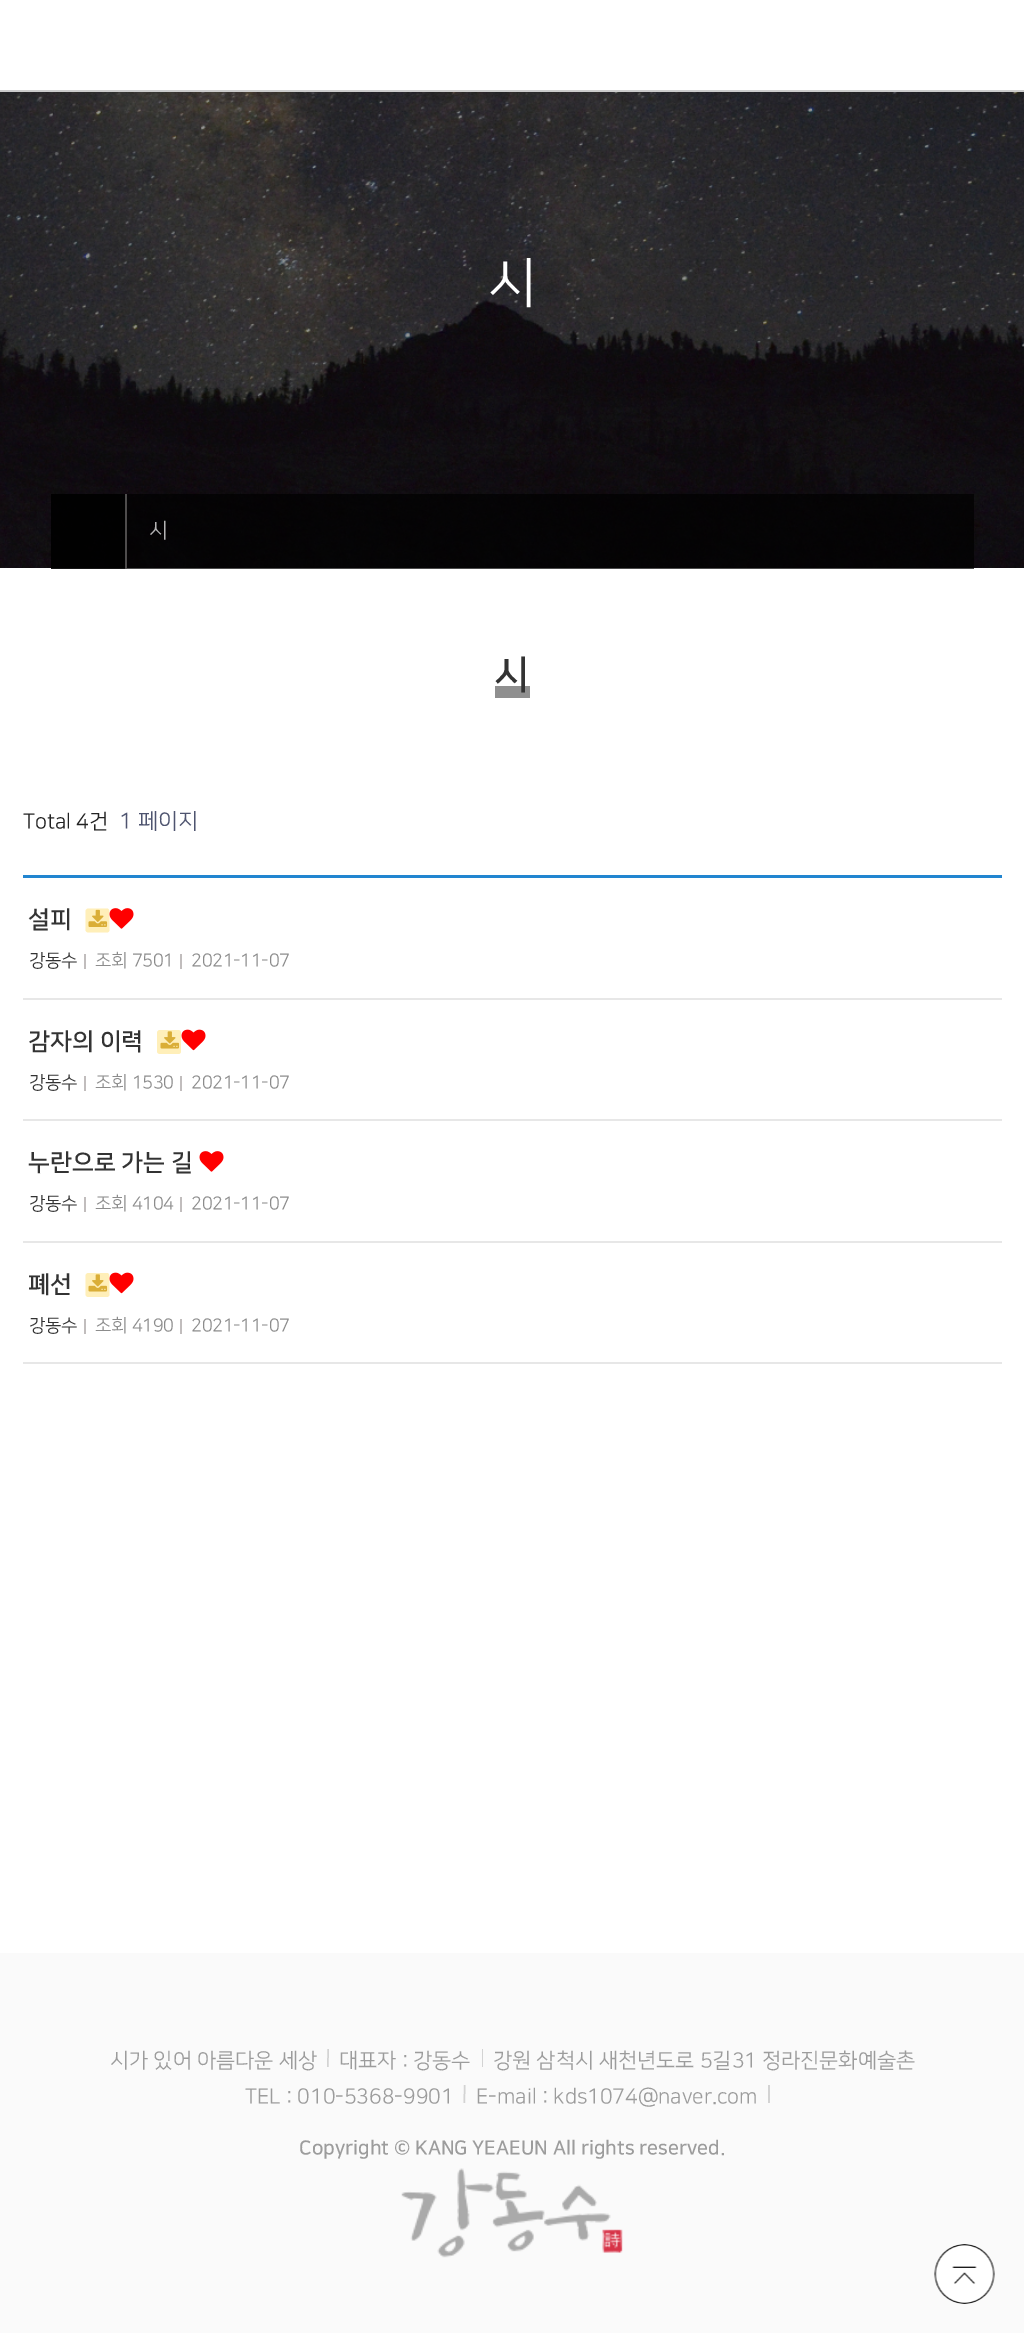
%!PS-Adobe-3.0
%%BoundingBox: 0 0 1024 2333
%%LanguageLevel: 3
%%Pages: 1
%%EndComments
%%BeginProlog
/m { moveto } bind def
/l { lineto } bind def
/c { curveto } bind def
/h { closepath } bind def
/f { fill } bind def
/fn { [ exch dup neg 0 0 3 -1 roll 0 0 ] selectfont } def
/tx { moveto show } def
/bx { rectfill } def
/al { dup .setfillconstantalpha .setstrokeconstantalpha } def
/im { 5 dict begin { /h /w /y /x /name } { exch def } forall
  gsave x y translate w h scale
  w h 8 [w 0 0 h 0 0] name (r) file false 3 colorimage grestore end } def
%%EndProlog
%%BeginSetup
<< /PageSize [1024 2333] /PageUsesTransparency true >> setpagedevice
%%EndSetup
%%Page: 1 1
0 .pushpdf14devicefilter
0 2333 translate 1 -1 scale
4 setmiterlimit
1 setgray
0 0 1024 2333 bx
0.8 setgray
0 90 1024 2 bx
(image0.raw) 0 92 1024 476 im
/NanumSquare-Regular 54 fn
1 setgray
(시) 488 300 tx
0.7 al
0 setgray
51 494 923 75 bx
51 494 74 75 bx
1 al
0.306 0.298 0.298 setrgbcolor
125 494 2 75 bx
/NanumSquare-Regular 21 fn
0.706 0.702 0.706 setrgbcolor
149 537 m 1 0 (시) ashow
0.561 setgray
495 686 35 12 bx
/NanumSquare-Bold 39 fn
0.2 setgray
(시) 494 687 tx
/NanumSquare-Regular 21 fn
0.133 setgray
(Total 4건) 23 828 tx
/NanumSquare-Regular 22 fn
0.306 0.329 0.435 setrgbcolor
(1 페이지) 119 828 tx
0.129 0.522 0.816 setrgbcolor
23 875 979 3 bx
0.906 setgray
23 998 979 2 bx
/NanumSquare-Bold 24 fn
0.2 setgray
(설피) 28 927 tx
1 0.937 0.725 setrgbcolor
88.5 908.5 m 106.5 908.5 l 108.5 908.5 109.5 910 109.5 911.5 c 109.5 929.5 l 109.5 931.5 108.5 932.5 106.5 932.5 c 88.5 932.5 l 87 932.5 85.5 931.5 85.5 929.5 c 85.5 911.5 l 85.5 910 87 908.5 88.5 908.5 c h f
(image1.raw) 88 909 20 18 im
(image2.raw) 109 908 25 21 im
/NanumSquare-Regular 18 fn
0.2 setgray
29 966 m -0.25 0 (강동수) ashow
0.757 0.741 0.741 setrgbcolor
84 954 2 15 bx
0.549 setgray
95 966 m -0.25 0 (조회 7501) ashow
0.757 0.741 0.741 setrgbcolor
180 954 2 15 bx
0.549 setgray
191 966 m -0.25 0 (2021-11-07) ashow
0.906 setgray
23 1119 979 2 bx
/NanumSquare-Bold 24 fn
0.2 setgray
(감자의 이력) 28 1049 tx
1 0.937 0.725 setrgbcolor
160 1030 m 178 1030 l 180 1030 181 1031.5 181 1033 c 181 1051 l 181 1053 180 1054 178 1054 c 160 1054 l 158.5 1054 157 1053 157 1051 c 157 1033 l 157 1031.5 158.5 1030 160 1030 c h f
(image3.raw) 160 1031 20 18 im
(image4.raw) 181 1029 25 22 im
/NanumSquare-Regular 18 fn
0.2 setgray
29 1088 m -0.25 0 (강동수) ashow
0.757 0.741 0.741 setrgbcolor
84 1076 2 15 bx
0.549 setgray
95 1088 m -0.25 0 (조회 1530) ashow
0.757 0.741 0.741 setrgbcolor
180 1076 2 15 bx
0.549 setgray
191 1088 m -0.25 0 (2021-11-07) ashow
0.906 setgray
23 1241 979 2 bx
/NanumSquare-Bold 24 fn
0.2 setgray
(누란으로 가는 길) 28 1170 tx
(image5.raw) 199 1151 25 21 im
/NanumSquare-Regular 18 fn
29 1209 m -0.25 0 (강동수) ashow
0.757 0.741 0.741 setrgbcolor
84 1197 2 15 bx
0.549 setgray
95 1209 m -0.25 0 (조회 4104) ashow
0.757 0.741 0.741 setrgbcolor
180 1197 2 15 bx
0.549 setgray
191 1209 m -0.25 0 (2021-11-07) ashow
0.906 setgray
23 1362 979 2 bx
/NanumSquare-Bold 24 fn
0.2 setgray
(폐선) 28 1292 tx
1 0.937 0.725 setrgbcolor
88.5 1273 m 106.5 1273 l 108.5 1273 109.5 1274.5 109.5 1276 c 109.5 1294 l 109.5 1296 108.5 1297 106.5 1297 c 88.5 1297 l 87 1297 85.5 1296 85.5 1294 c 85.5 1276 l 85.5 1274.5 87 1273 88.5 1273 c h f
(image3.raw) 88 1274 20 18 im
(image6.raw) 109 1272 25 22 im
/NanumSquare-Regular 18 fn
0.2 setgray
29 1331 m -0.25 0 (강동수) ashow
0.757 0.741 0.741 setrgbcolor
84 1319 2 15 bx
0.549 setgray
95 1331 m -0.25 0 (조회 4190) ashow
0.757 0.741 0.741 setrgbcolor
180 1319 2 15 bx
0.549 setgray
191 1331 m -0.25 0 (2021-11-07) ashow
0.98 setgray
0 1953 1024 380 bx
/NanumSquare-Regular 21 fn
0.612 setgray
(시가 있어 아름다운 세상) 110 2067 tx
0.827 setgray
327.5 2049 m 329 2049 l 328.5 2067 l 327 2067 l h f
0.612 setgray
(대표자 : 강동수) 339 2067 tx
0.827 setgray
482 2049 1 18 bx
0.612 setgray
(강원 삼척시 새천년도로 5길31 정라진문화예술촌) 493 2067 tx
(TEL : 010-5368-9901) 245 2103 tx
0.827 setgray
464 2085 m 465.5 2085 l 465 2103 l 463.5 2103 l h f
0.612 setgray
(E-mail : kds1074@naver.com) 476 2103 tx
0.827 setgray
768 2085 2 18 bx
/NanumSquare-Bold 19.5 fn
0.612 setgray
(Copyright © KANG YEAEUN All rights reserved.) 299 2154 tx
(image7.raw) 401 2168 222 90 im
(image8.raw) 934 2244 61 60 im
.poppdf14devicefilter showpage
%%EOF
